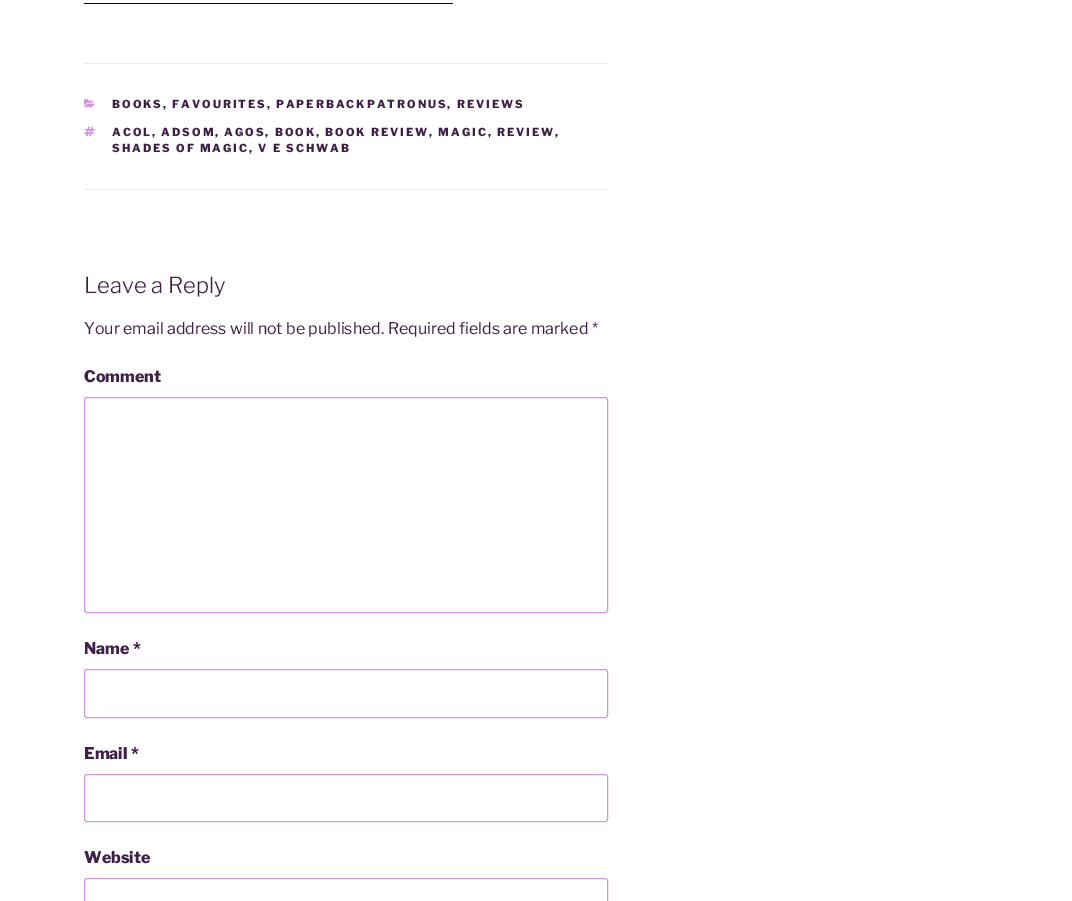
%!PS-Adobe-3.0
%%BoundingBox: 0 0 1072 901
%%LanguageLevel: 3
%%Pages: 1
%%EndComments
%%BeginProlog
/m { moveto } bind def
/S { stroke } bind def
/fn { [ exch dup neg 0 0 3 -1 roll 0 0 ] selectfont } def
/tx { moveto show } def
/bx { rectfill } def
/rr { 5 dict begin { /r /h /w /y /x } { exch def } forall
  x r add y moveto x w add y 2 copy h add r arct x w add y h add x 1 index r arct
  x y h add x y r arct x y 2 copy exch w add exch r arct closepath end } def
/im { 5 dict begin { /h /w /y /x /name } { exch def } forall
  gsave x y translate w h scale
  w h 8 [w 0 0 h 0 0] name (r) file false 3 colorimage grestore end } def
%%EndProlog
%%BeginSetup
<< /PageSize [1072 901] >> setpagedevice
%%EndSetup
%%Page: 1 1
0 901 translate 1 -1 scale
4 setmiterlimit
1 setgray
0 0 1072 901 bx
0.078 0.031 0.09 setrgbcolor
84 3 369 1 bx
0.953 0.894 0.965 setrgbcolor
84 63 524 1 bx
84 189 524 1 bx
(image0.raw) 84 99 11 9 im
/LibreFranklin-ExtraBold 11 fn
0.247 0.122 0.278 setrgbcolor
112 108 m 2 0 (BOOKS, FAVOURITES, PAPERBACKPATRONUS, REVIEWS) ashow
(image1.raw) 84 126 11 11 im
112 136 m 2 0 (ACOL, ADSOM, AGOS, BOOK, BOOK REVIEW, MAGIC, REVIEW,) ashow
112 152 m 2 0 (SHADES OF MAGIC, V E SCHWAB) ashow
/LibreFranklin-Light 22 fn
(Leave a Reply) 84 293 tx
/LibreFranklin-Regular 16 fn
(Your email address will not be published. Required fields are marked *) 84 334 tx
/LibreFranklin-ExtraBold 16 fn
(Comment) 84 382 tx
0.812 0.596 0.867 setrgbcolor
84.5 397.5 523 215 2.5 rr S
0.247 0.122 0.278 setrgbcolor
(Name *) 84 654 tx
0.812 0.596 0.867 setrgbcolor
84.5 669.5 523 48 2.5 rr S
0.247 0.122 0.278 setrgbcolor
(Email *) 84 759 tx
0.812 0.596 0.867 setrgbcolor
84.5 774.5 523 47 2.5 rr S
0.247 0.122 0.278 setrgbcolor
(Website) 84 863 tx
0.812 0.596 0.867 setrgbcolor
84.5 878.5 523 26 2.5 rr S
showpage
%%EOF
